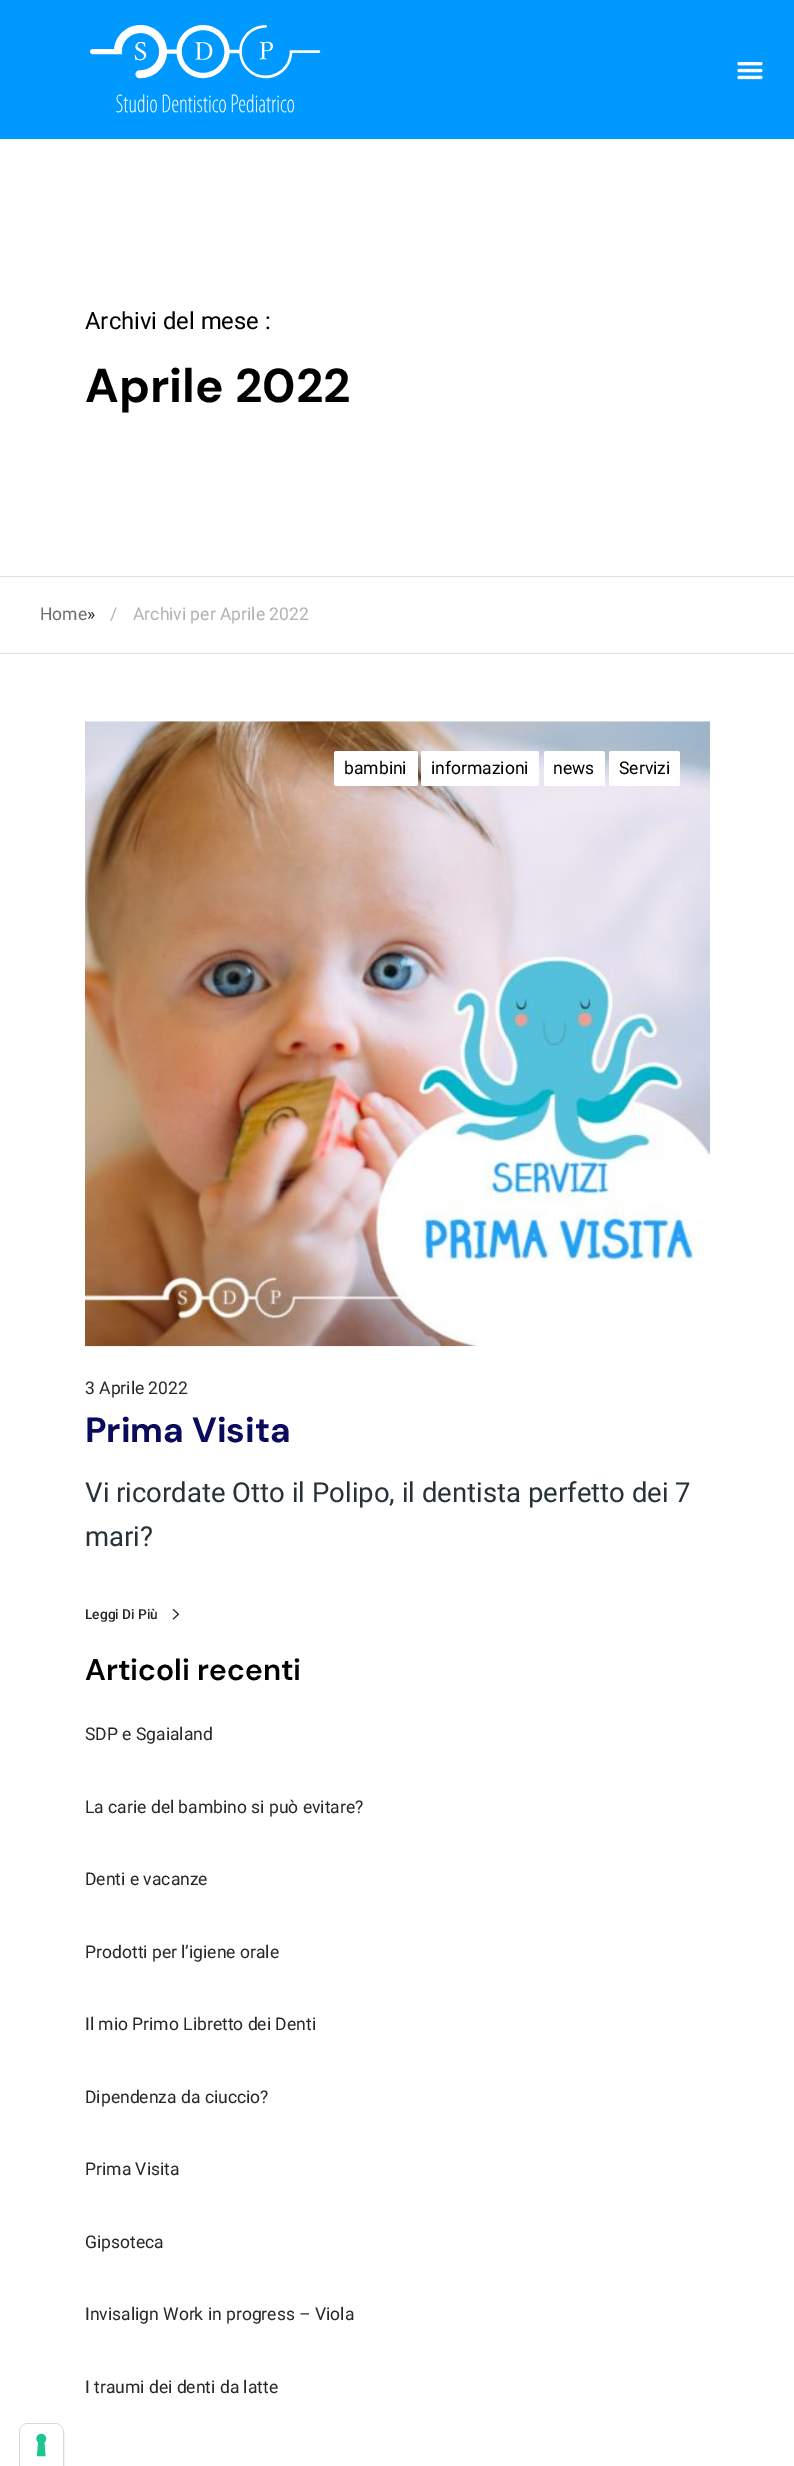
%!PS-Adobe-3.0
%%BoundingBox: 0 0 794 2466
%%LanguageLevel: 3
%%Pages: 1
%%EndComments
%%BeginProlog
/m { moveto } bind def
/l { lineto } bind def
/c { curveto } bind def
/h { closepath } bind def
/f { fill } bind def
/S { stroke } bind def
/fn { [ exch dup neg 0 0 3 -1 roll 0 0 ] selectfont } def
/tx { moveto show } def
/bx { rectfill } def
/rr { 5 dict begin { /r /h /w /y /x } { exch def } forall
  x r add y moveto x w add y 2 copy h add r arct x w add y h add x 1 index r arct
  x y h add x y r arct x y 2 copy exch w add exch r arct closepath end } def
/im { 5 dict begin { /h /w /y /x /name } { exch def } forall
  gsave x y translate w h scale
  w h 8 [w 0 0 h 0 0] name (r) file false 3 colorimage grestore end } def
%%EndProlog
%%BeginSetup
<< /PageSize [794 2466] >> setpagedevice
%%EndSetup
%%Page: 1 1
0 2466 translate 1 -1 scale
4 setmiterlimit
1 setgray
0 0 794 2466 bx
0 0.6 1 setrgbcolor
0 0 794 139 bx
(image0.raw) 90 25 231 88 im
(image1.raw) 737 62 26 18 im
/Roboto-Regular 23.75 fn
0 setgray
(Archivi del mese :) 85 329 tx
/DMSans-Bold 47.5 fn
(Aprile 2022) 85 402 tx
0.878 setgray
0 576 794 1 bx
0 653 794 1 bx
/Roboto-Regular 17.5 fn
0.431 setgray
(Home) 40 620 tx
0.153 setgray
(») 87 620 tx
0.698 setgray
(/) 110 620 tx
(Archivi per Aprile 2022) 133 620 tx
(image2.raw) 85 721 625 626 im
1 setgray
334 751 84 35 2.5 rr f
0 setgray
(bambini) 344 774 tx
1 setgray
421 751 118 35 2.5 rr f
0 setgray
(informazioni) 431 774 tx
1 setgray
544 751 61 35 2.5 rr f
0 setgray
(news) 553 774 tx
1 setgray
609 751 71 35 2.5 rr f
0 setgray
(Servizi) 619 774 tx
0.153 setgray
(3 Aprile 2022) 85 1394 tx
/DMSans-Bold 35 fn
0.039 0.043 0.361 setrgbcolor
(Prima Visita) 85 1442 tx
/Roboto-Regular 27.5 fn
0.149 0.196 0.22 setrgbcolor
(Vi ricordate Otto il Polipo, il dentista perfetto dei 7) 85 1502 tx
(mari?) 85 1546 tx
/Roboto-Medium 13.75 fn
0.153 setgray
(Leggi Di Più) 85 1619 tx
(image3.raw) 172 1609 8 11 im
/DMSans-SemiBold 30 fn
0 setgray
(Articoli recenti) 85 1680 tx
/Roboto-Regular 17.5 fn
0.153 setgray
(SDP e Sgaialand) 85 1740 tx
(La carie del bambino si può evitare?) 85 1813 tx
(Denti e vacanze) 85 1885 tx
(Prodotti per l’igiene orale) 85 1958 tx
(Il mio Primo Libretto dei Denti) 85 2030 tx
(Dipendenza da ciuccio?) 85 2103 tx
(Prima Visita) 85 2175 tx
(Gipsoteca) 85 2248 tx
(Invisalign Work in progress – Viola) 85 2320 tx
(I traumi dei denti da latte) 85 2393 tx
0.851 setgray
28 2423.5 m 55 2423.5 l 59.5 2423.5 63.5 2427.5 63.5 2432 c 63.5 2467.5 l 19.5 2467.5 l 19.5 2432 l 19.5 2427.5 23.5 2423.5 28 2423.5 c h S
1 setgray
28 2424 m 55 2424 l 59.5 2424 63 2427.5 63 2432 c 63 2466 l 20 2466 l 20 2432 l 20 2427.5 23.5 2424 28 2424 c h f
(image4.raw) 36 2433 11 24 im
showpage
%%EOF
